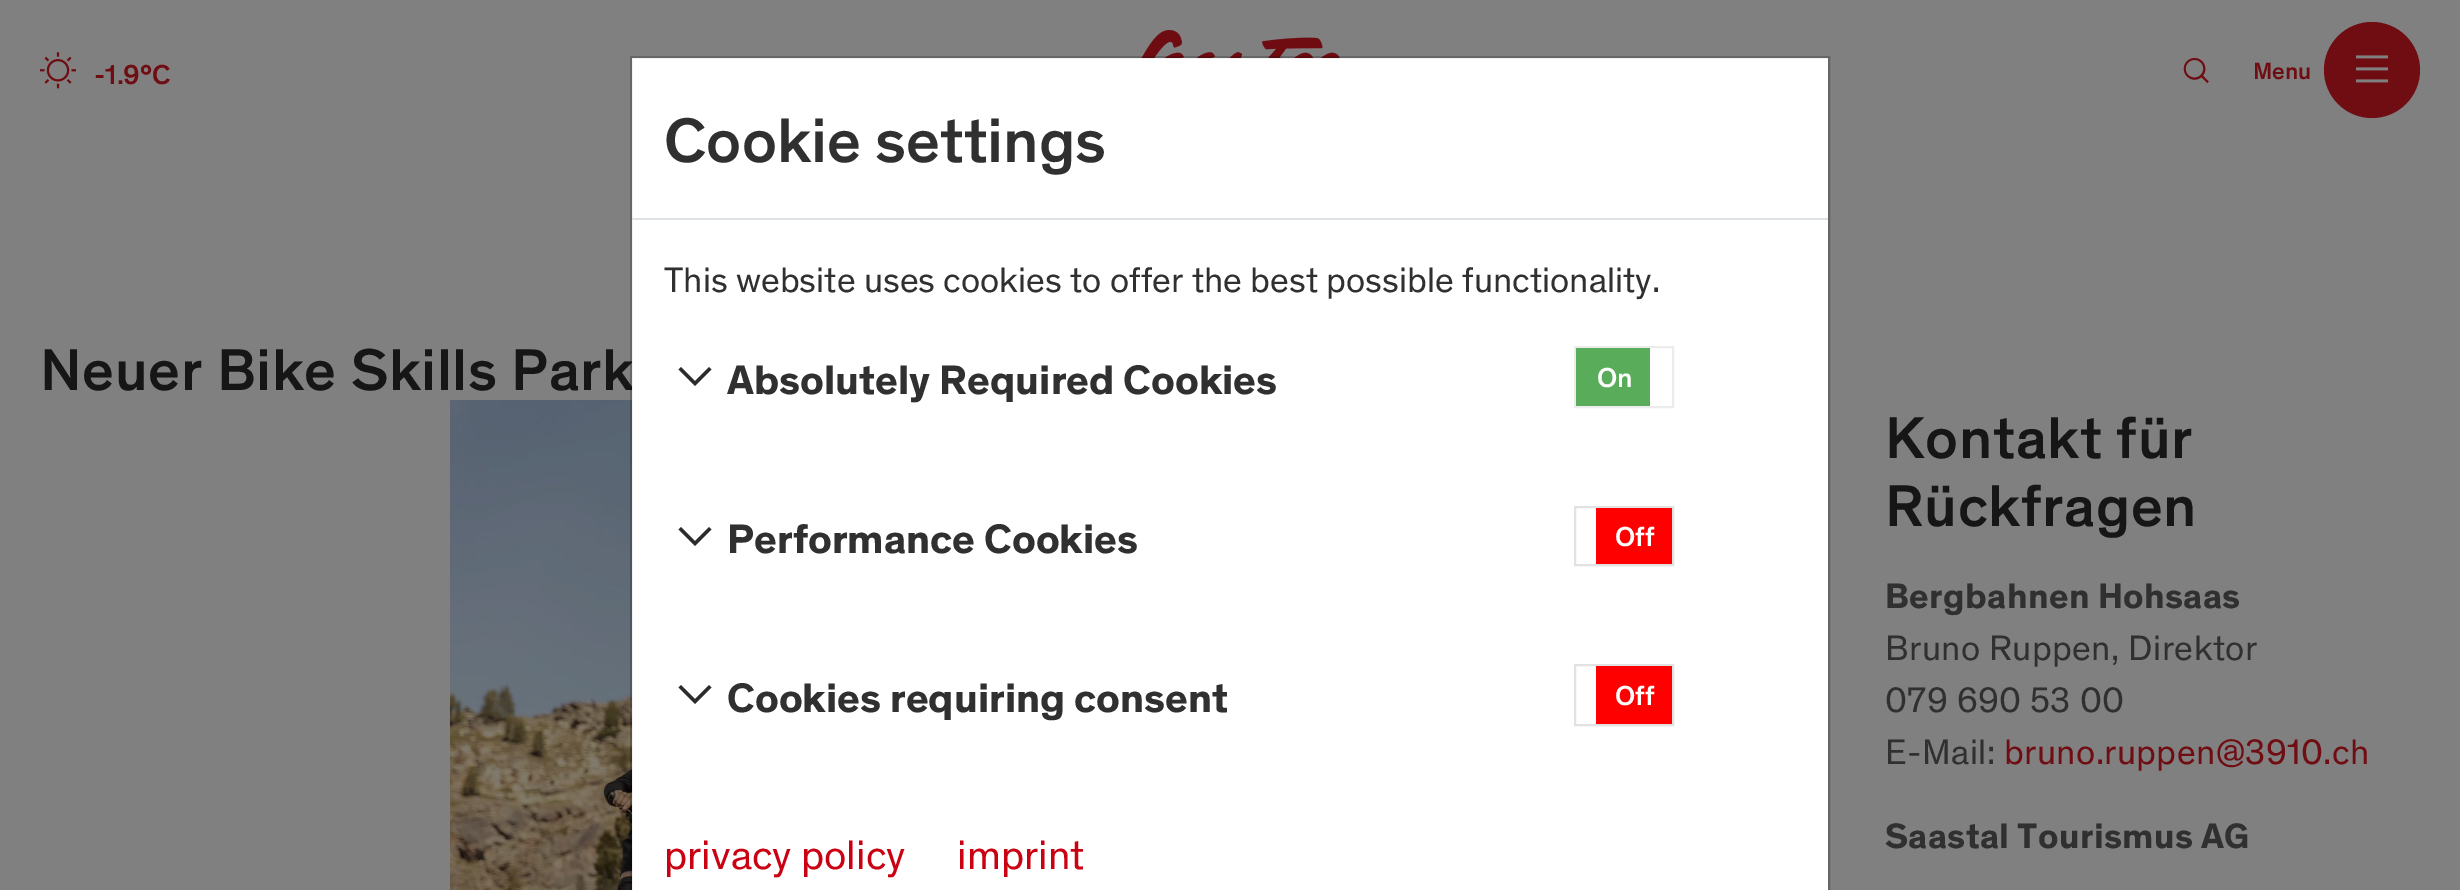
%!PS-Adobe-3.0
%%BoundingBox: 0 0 2460 890
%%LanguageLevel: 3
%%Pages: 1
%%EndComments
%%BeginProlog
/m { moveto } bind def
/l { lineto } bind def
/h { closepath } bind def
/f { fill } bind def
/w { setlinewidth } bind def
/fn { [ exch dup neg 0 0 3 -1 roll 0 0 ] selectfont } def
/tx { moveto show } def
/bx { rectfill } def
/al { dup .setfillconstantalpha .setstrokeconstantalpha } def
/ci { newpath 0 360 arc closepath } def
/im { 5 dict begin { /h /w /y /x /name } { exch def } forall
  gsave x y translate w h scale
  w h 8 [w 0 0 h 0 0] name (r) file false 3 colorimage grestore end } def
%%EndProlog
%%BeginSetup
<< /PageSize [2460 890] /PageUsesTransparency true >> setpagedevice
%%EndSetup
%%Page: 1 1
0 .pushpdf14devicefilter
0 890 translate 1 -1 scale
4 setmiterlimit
0.502 setgray
0 0 2460 890 bx
(image0.raw) 1141 30 199 28 im
(image1.raw) 40 52 36 37 im
/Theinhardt-Medium 28 fn
0.435 0.051 0.075 setrgbcolor
(-1.9°C) 94 84 tx
(image2.raw) 2183 58 26 26 im
/Theinhardt-Medium 24 fn
(Menu) 2253 79 tx
2372 70 48 ci f
(image3.raw) 2356 55 32 28 im
/Theinhardt-Medium 60 fn
0.086 setgray
40 390 m 0.6 0 (Neuer Bike Skills Park) ashow
(image4.raw) 450 400 182 490 im
1885 458 m 0.6 0 (Kontakt für) ashow
1885 526 m 0.6 0 (Rückfragen) ashow
/Theinhardt-Bold 36 fn
0.188 setgray
1885 608 m 0.4 0 (Bergbahnen Hohsaas) ashow
/Theinhardt-Regular 36 fn
1885 660 m 0.4 0 (Bruno Ruppen, Direktor) ashow
1885 712 m 0.4 0 (079 690 53 00) ashow
1885 764 m 0.4 0 (E-Mail:) ashow
0.435 0.051 0.075 setrgbcolor
2004 764 m 0.4 0 (bruno.ruppen@3910.ch) ashow
/Theinhardt-Bold 36 fn
0.188 setgray
1885 848 m 0.4 0 (Saastal Tourismus AG) ashow
1 setgray
632 58 1196 832 bx
0.2 al
0 setgray
2 w
631 57 1198 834 rectstroke
1 al
0.871 0.886 0.902 setrgbcolor
632 218 1196 2 bx
/Theinhardt-Medium 64 fn
0.188 setgray
(Cookie settings) 664 162 tx
/Theinhardt-Regular 36 fn
(This website uses cookies to offer the best possible functionality.) 664 292 tx
0.169 setgray
678.5 369.5 m 681 367 l 695 381 l 709 367 l 711.5 369.5 l 695 386 l h f
/Theinhardt-Bold 42 fn
0.188 setgray
(Absolutely Required Cookies) 727 394 tx
0.925 setgray
1575 347 98 60 rectstroke
0.349 0.675 0.349 setrgbcolor
1576 348 74 58 bx
/Theinhardt-Medium 28 fn
1 setgray
(On) 1597 387 tx
0.169 setgray
678.5 529.5 m 681 527 l 695 541 l 709 527 l 711.5 529.5 l 695 546 l h f
/Theinhardt-Bold 42 fn
0.188 setgray
(Performance Cookies) 727 553 tx
0.886 setgray
1575 507 98 58 rectstroke
1 0 0 setrgbcolor
1596 508 76 56 bx
/Theinhardt-Medium 28 fn
1 setgray
(Off) 1615 546 tx
0.169 setgray
678.5 687.5 m 681 685 l 695 699 l 709 685 l 711.5 687.5 l 695 704 l h f
/Theinhardt-Bold 42 fn
0.188 setgray
(Cookies requiring consent) 727 712 tx
0.886 setgray
1575 665 98 60 rectstroke
1 0 0 setrgbcolor
1596 666 76 58 bx
/Theinhardt-Medium 28 fn
1 setgray
(Off) 1615 705 tx
/Theinhardt-Regular 42 fn
0.792 0 0.075 setrgbcolor
(privacy policy) 664 869 tx
(imprint) 957 869 tx
.poppdf14devicefilter showpage
%%EOF
